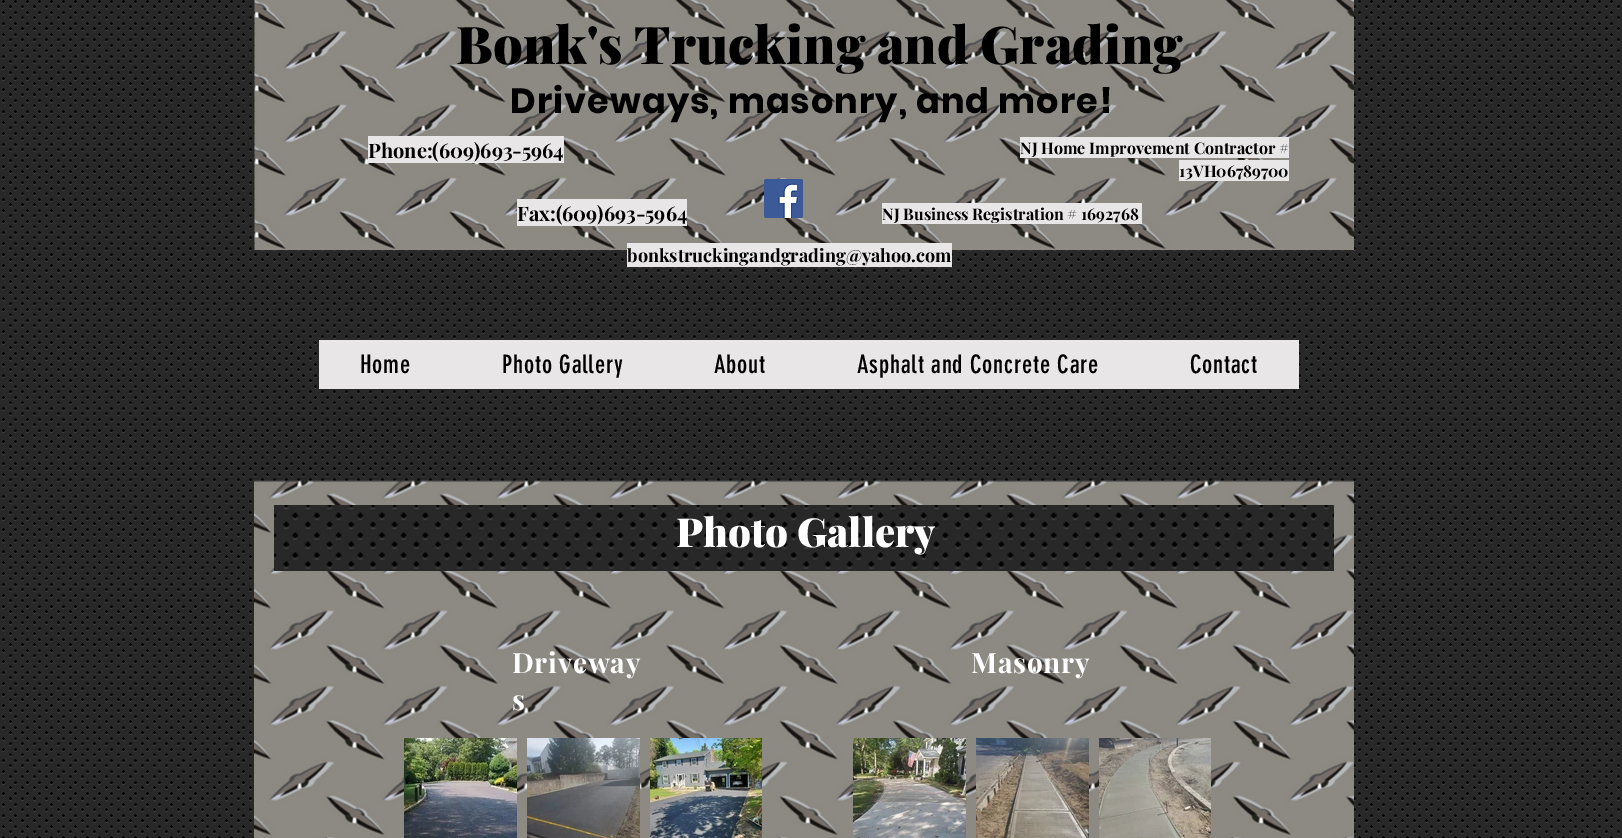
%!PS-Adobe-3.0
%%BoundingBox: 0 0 1622 838
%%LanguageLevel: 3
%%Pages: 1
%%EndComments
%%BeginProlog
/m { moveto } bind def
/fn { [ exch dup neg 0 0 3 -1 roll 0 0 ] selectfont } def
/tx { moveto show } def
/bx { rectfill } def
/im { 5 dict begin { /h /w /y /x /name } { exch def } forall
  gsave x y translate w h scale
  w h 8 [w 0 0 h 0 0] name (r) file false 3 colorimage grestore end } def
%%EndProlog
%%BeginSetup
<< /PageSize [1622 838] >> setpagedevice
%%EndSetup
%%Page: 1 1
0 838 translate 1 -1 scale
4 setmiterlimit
1 setgray
0 0 1622 838 bx
(image0.raw) 0 0 1622 838 im
(image1.raw) 254 0 1100 250 im
/PlayfairDisplay-Black 52 fn
0 setgray
(Bonk's Trucking and Grading) 456 64 tx
/Poppins-Bold 35 fn
510 113 m 1.05 0 (Driveways, masonry, and more!) ashow
0.91 0.902 0.902 setrgbcolor
1020 137 269 21 bx
/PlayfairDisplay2-Bold 16 fn
0 setgray
(NJ Home Improvement Contractor #) 1020 154 tx
0.91 0.902 0.902 setrgbcolor
1179 160 110 21 bx
0 setgray
(13VH06789700) 1179 177 tx
0.91 0.902 0.902 setrgbcolor
517 199 170 27 bx
/PlayfairDisplay2-Bold 20 fn
0 setgray
(Fax:\(609\)693-5964) 517 221 tx
(image2.raw) 764 179 39 39 im
0.91 0.902 0.902 setrgbcolor
882 203 260 21 bx
/PlayfairDisplay2-Bold 16 fn
0 setgray
(NJ Business Registration # 1692768) 882 220 tx
0.91 0.902 0.902 setrgbcolor
627 243 325 24 bx
/PlayfairDisplay2-Bold 18 fn
0 setgray
(bonkstruckingandgrading@yahoo.com) 627 262 tx
0.91 0.902 0.902 setrgbcolor
319 340 980 49 bx
/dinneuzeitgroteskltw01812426-Regular 25 fn
0 setgray
360 373 m 0.75 0 (Home) ashow
502 373 m 0.75 0 (Photo Gallery) ashow
714 373 m 0.75 0 (About) ashow
857 373 m 0.75 0 (Asphalt and Concrete Care) ashow
1190 373 m 0.75 0 (Contact) ashow
0.91 0.902 0.902 setrgbcolor
368 136 196 27 bx
/PlayfairDisplay2-Bold 20 fn
0 setgray
(Phone:\(609\)693-5964) 368 158 tx
(image3.raw) 254 480 1100 358 im
(image4.raw) 274 505 1060 66 im
/PlayfairDisplay-Black 40 fn
1 setgray
(Photo Gallery) 676 547 tx
/PlayfairDisplay-Bold 28 fn
512 673 m 0.75 0 (Driveway) ashow
512 710 m 0.75 0 (s) ashow
971 673 m 0.75 0 (Masonry) ashow
(image5.raw) 404 738 113 100 im
(image6.raw) 527 738 113 100 im
(image7.raw) 650 738 112 100 im
(image8.raw) 853 738 113 100 im
(image9.raw) 976 738 113 100 im
(image10.raw) 1099 738 112 100 im
showpage
%%EOF
